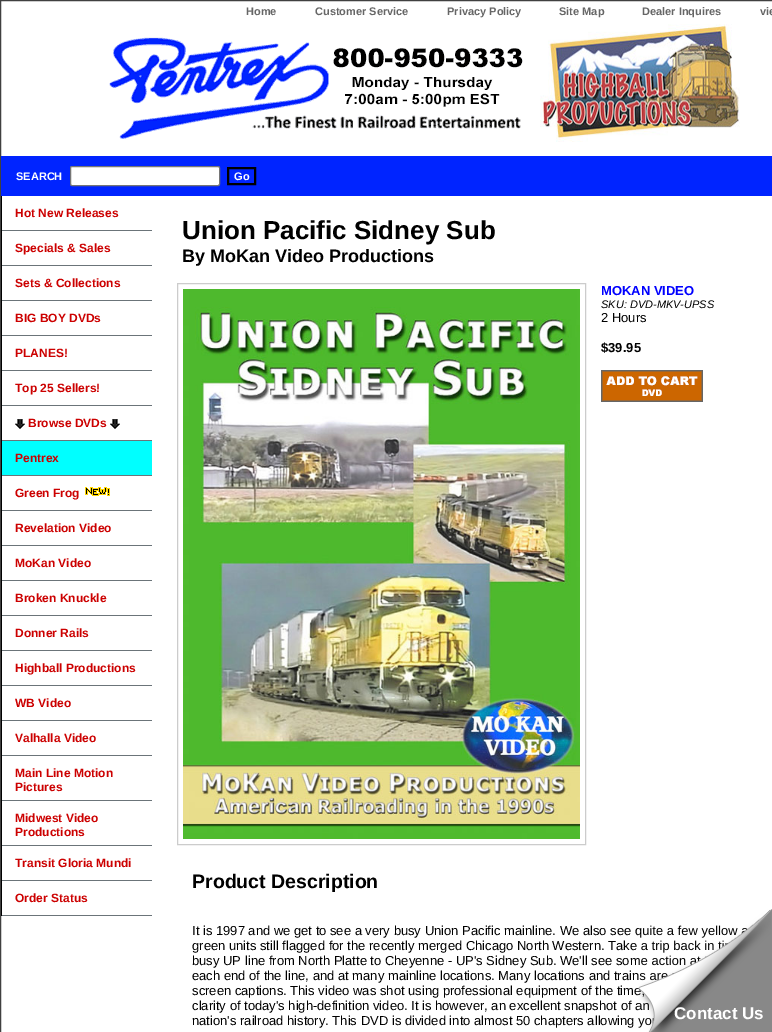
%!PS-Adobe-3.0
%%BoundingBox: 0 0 772 1032
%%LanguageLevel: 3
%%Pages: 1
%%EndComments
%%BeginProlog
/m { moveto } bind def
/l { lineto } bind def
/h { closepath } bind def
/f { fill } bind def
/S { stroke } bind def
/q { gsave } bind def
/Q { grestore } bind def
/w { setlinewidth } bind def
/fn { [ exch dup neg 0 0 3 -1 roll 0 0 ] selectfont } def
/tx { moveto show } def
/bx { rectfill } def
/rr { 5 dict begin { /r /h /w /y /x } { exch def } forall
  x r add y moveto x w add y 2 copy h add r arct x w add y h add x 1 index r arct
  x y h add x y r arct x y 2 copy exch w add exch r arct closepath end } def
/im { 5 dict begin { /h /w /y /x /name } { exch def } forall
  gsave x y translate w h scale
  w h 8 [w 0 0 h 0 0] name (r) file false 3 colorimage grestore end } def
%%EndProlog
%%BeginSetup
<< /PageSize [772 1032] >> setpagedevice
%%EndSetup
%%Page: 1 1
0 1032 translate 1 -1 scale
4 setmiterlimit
1 setgray
0 0 772 1032 bx
0.251 setgray
0.5 0.5 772 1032 rectstroke
/LiberationSans-Bold 11 fn
0.4 setgray
(Home) 246 15 tx
(Customer Service) 315 15 tx
(Privacy Policy) 447 15 tx
(Site Map) 559 15 tx
(Dealer Inquires) 642 15 tx
(vie) 760 15 tx
(image0.raw) 109 37 414 102 im
(image1.raw) 540 24 200 118 im
0 0.141 1 setrgbcolor
1 156 771 40 bx
1 setgray
(SEARCH) 16 180 tx
70.5 166.5 149 19 1.5 rr q f Q
0.463 setgray
S
0 setgray
2 w
228 168 27 16 rectstroke
1 setgray
(Go) 234 180 tx
0 setgray
1 196 1 720 bx
0.42 0.455 0.475 setrgbcolor
2 230 150 1 bx
/LiberationSans-Bold 12 fn
0.8 0 0 setrgbcolor
(Hot New Releases) 15 217 tx
0.42 0.455 0.475 setrgbcolor
2 265 150 1 bx
0.8 0 0 setrgbcolor
(Specials & Sales) 15 252 tx
0.42 0.455 0.475 setrgbcolor
2 300 150 1 bx
0.8 0 0 setrgbcolor
(Sets & Collections) 15 287 tx
0.42 0.455 0.475 setrgbcolor
2 335 150 1 bx
0.8 0 0 setrgbcolor
(BIG BOY DVDs) 15 322 tx
0.42 0.455 0.475 setrgbcolor
2 370 150 1 bx
0.8 0 0 setrgbcolor
(PLANES!) 15 357 tx
0.42 0.455 0.475 setrgbcolor
2 405 150 1 bx
0.8 0 0 setrgbcolor
(Top 25 Sellers!) 15 392 tx
0.42 0.455 0.475 setrgbcolor
2 440 150 1 bx
(image2.raw) 15 419 10 10 im
0.8 0 0 setrgbcolor
(Browse DVDs) 28 427 tx
(image2.raw) 110 419 10 10 im
0 1 1 setrgbcolor
2 441 150 34 bx
0.42 0.455 0.475 setrgbcolor
2 475 150 1 bx
0.8 0 0 setrgbcolor
(Pentrex) 15 462 tx
0.42 0.455 0.475 setrgbcolor
2 510 150 1 bx
0.8 0 0 setrgbcolor
(Green Frog) 15 497 tx
(image3.raw) 85 487 25 9 im
0.42 0.455 0.475 setrgbcolor
2 545 150 1 bx
0.8 0 0 setrgbcolor
(Revelation Video) 15 532 tx
0.42 0.455 0.475 setrgbcolor
2 580 150 1 bx
0.8 0 0 setrgbcolor
(MoKan Video) 15 567 tx
0.42 0.455 0.475 setrgbcolor
2 615 150 1 bx
0.8 0 0 setrgbcolor
(Broken Knuckle) 15 602 tx
0.42 0.455 0.475 setrgbcolor
2 650 150 1 bx
0.8 0 0 setrgbcolor
(Donner Rails) 15 637 tx
0.42 0.455 0.475 setrgbcolor
2 685 150 1 bx
0.8 0 0 setrgbcolor
(Highball Productions) 15 672 tx
0.42 0.455 0.475 setrgbcolor
2 720 150 1 bx
0.8 0 0 setrgbcolor
(WB Video) 15 707 tx
0.42 0.455 0.475 setrgbcolor
2 755 150 1 bx
0.8 0 0 setrgbcolor
(Valhalla Video) 15 742 tx
0.42 0.455 0.475 setrgbcolor
2 800 150 1 bx
0.8 0 0 setrgbcolor
(Main Line Motion) 15 777 tx
(Pictures) 15 791 tx
0.42 0.455 0.475 setrgbcolor
2 845 150 1 bx
0.8 0 0 setrgbcolor
(Midwest Video) 15 822 tx
(Productions) 15 836 tx
0.42 0.455 0.475 setrgbcolor
2 880 150 1 bx
0.8 0 0 setrgbcolor
(Transit Gloria Mundi) 15 867 tx
0.42 0.455 0.475 setrgbcolor
2 915 150 1 bx
0.8 0 0 setrgbcolor
(Order Status) 15 902 tx
/LiberationSans-Bold 26 fn
0 setgray
(Union Pacific Sidney Sub) 182 239 tx
/LiberationSans-Bold 18 fn
(By MoKan Video Productions) 182 262 tx
0.8 setgray
1 w
177.5 283.5 408 561 rectstroke
(image4.raw) 183 289 397 550 im
/LiberationSans-Bold 13 fn
0 0 1 setrgbcolor
(MOKAN VIDEO) 601 295 tx
/LiberationSans-Italic 11 fn
0 setgray
(SKU: DVD-MKV-UPSS) 601 308 tx
/LiberationSans-Regular 13 fn
(2 Hours) 601 322 tx
/LiberationSans-Bold 13 fn
($39.95) 601 352 tx
(image5.raw) 601 370 102 32 im
/LiberationSans-Bold 19.5 fn
(Product Description) 192 888 tx
/LiberationSans-Regular 13 fn
(It is 1997 and we get to see a very busy Union Pacific mainline. We also see quite a few yellow) 192 935 tx
(green units still flagged for the recently merged Chicago North Western. Take a trip back in) 192 950 tx
(busy UP line from North Platte to Cheyenne - UP's Sidney Sub. We'll see some action at) 192 965 tx
(each end of the line, and at many mainline locations. Many locations and trains are) 192 980 tx
(screen captions. This video was shot using professional equipment of the time,) 192 995 tx
(clarity of today's high-definition video. It is however, an excellent snapshot of an) 192 1010 tx
(nation's railroad history. This DVD is divided into almost 50 chapters allowing yo) 192 1025 tx
0.533 setgray
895 1032 m 649 1032 l 772 909 l h f
(image6.raw) 638 909 133 123 im
/LiberationSans-Bold 17 fn
1 setgray
(Contact Us) 674 1019 tx
showpage
%%EOF
